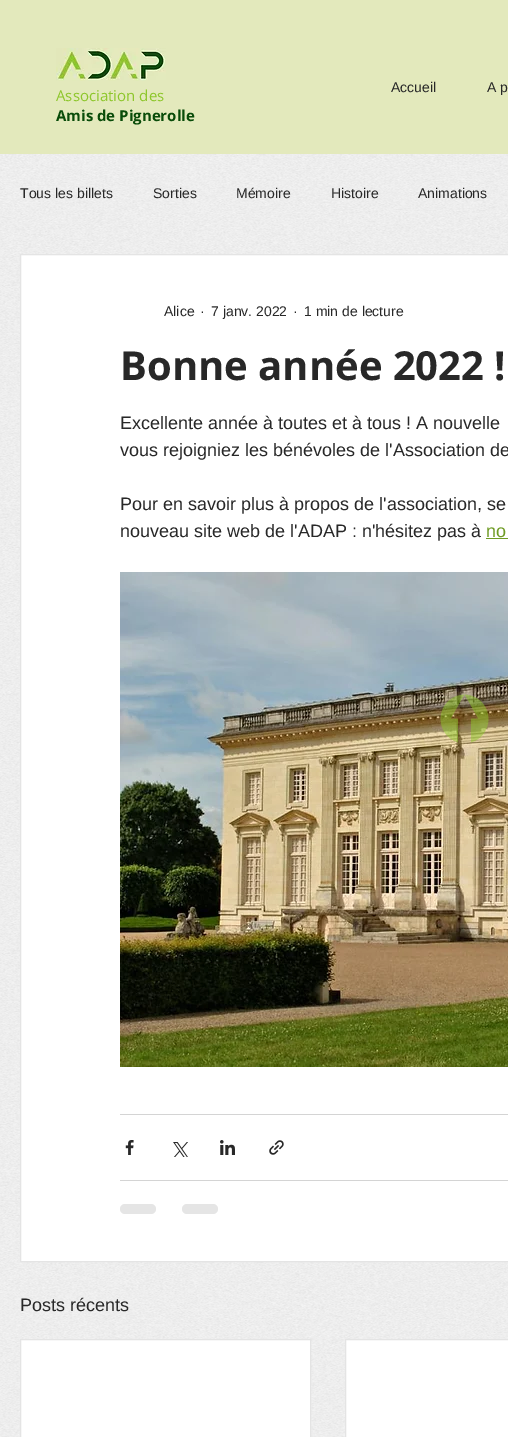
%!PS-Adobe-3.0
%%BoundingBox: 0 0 508 1437
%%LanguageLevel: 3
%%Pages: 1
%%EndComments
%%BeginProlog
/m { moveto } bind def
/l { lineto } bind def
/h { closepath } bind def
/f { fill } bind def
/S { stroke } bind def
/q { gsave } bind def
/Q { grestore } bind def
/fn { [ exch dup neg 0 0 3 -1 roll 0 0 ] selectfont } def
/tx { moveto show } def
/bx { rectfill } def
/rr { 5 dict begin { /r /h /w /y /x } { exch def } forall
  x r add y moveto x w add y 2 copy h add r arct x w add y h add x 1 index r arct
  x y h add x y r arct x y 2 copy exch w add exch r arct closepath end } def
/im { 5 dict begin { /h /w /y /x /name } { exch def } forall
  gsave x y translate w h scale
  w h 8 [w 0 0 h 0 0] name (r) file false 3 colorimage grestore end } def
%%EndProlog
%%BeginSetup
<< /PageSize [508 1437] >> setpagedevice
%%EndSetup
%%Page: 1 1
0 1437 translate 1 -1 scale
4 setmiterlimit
1 setgray
0 0 508 1437 bx
0.89 0.914 0.737 setrgbcolor
0 0 508 154 bx
(image0.raw) 56 48 110 33 im
/OpenSans-Regular 15 fn
0.557 0.78 0.173 setrgbcolor
(Association des) 56 101 tx
/OpenSans-Bold 15 fn
0.035 0.298 0.035 setrgbcolor
(Amis de Pignerolle) 56 121 tx
/LiberationSans-Regular 14 fn
0.157 setgray
(Accueil) 391 92 tx
(A p) 487 92 tx
(image7.raw) 0 154 508 1283 im
(Tous les billets) 20 198 tx
(Sorties) 153 198 tx
(Mémoire) 236 198 tx
(Histoire) 331 198 tx
(Animations) 418 198 tx
1 setgray
20.5 254.5 m 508.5 254.5 l 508.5 1261.5 l 20.5 1261.5 l h q f Q
0.894 setgray
S
0.157 setgray
(Alice) 164 316 tx
(·) 200 316 tx
(7 janv. 2022) 211 316 tx
(·) 293 316 tx
(1 min de lecture) 304 316 tx
/OpenSans-Bold 40 fn
(Bonne année 2022 !) 120 380 tx
/LiberationSans-Regular 18 fn
(Excellente année à toutes et à tous ! A nouvelle) 120 429 tx
(vous rejoigniez les bénévoles de l'Association de) 120 456 tx
(Pour en savoir plus à propos de l'association, se) 120 510 tx
(nouveau site web de l'ADAP : n'hésitez pas à) 120 537 tx
0.435 0.608 0.141 setrgbcolor
(no) 486 537 tx
486 538 22 1 bx
(image1.raw) 120 572 388 495 im
0.831 setgray
120 1114 388 1 bx
(image2.raw) 125 1140 9 15 im
(image3.raw) 173 1142 15 15 im
(image4.raw) 220 1140 15 15 im
(image5.raw) 269 1140 15 15 im
120 1180 388 1 bx
0.898 setgray
120 1204 36 10 5 rr f
182 1204 36 10 5 rr f
0.157 setgray
(Posts récents) 20 1311 tx
1 setgray
20.5 1339.5 m 310.5 1339.5 l 310.5 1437.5 l 20.5 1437.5 l h q f Q
0.894 setgray
S
1 setgray
345.5 1339.5 m 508.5 1339.5 l 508.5 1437.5 l 345.5 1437.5 l h q f Q
0.894 setgray
S
(image6.raw) 440 694 49 49 im
showpage
%%EOF
